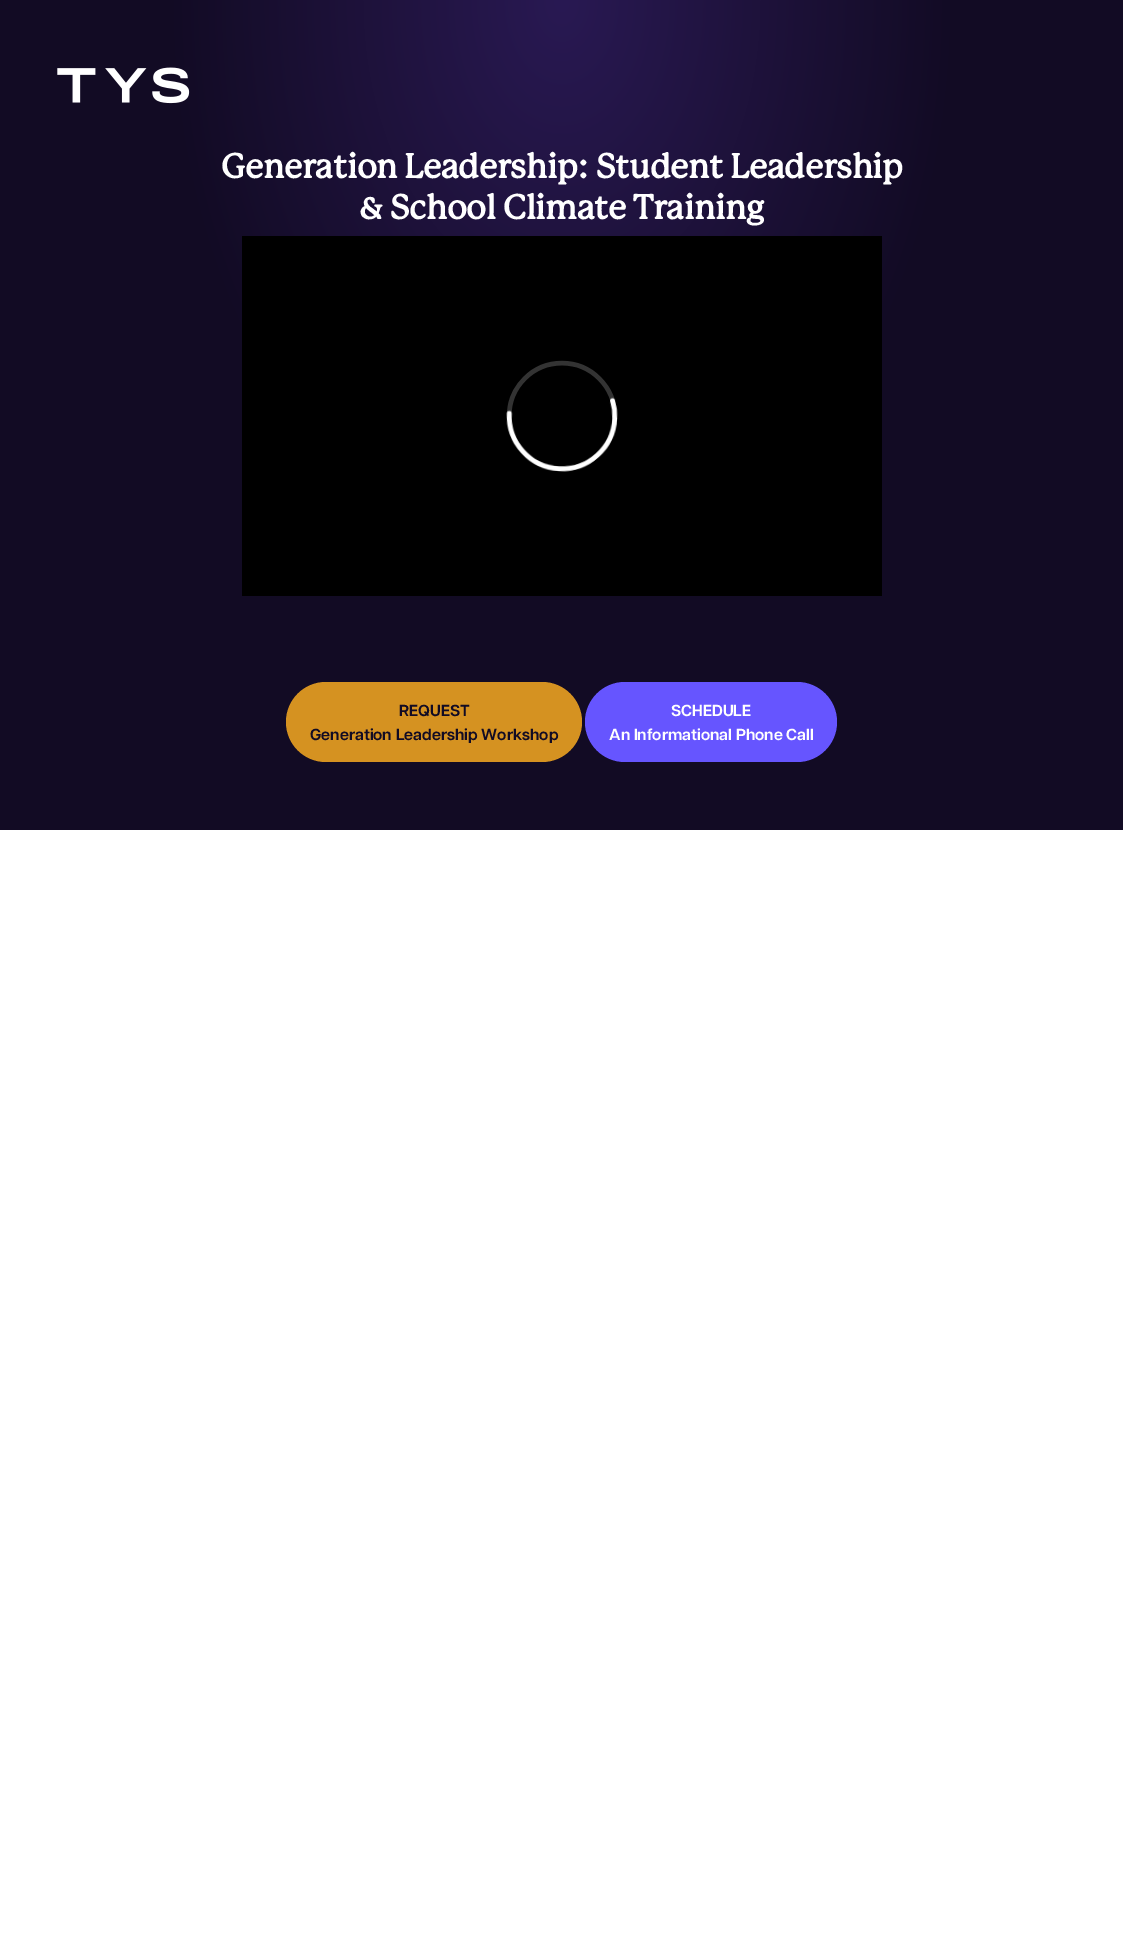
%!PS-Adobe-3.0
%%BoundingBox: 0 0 1123 1954
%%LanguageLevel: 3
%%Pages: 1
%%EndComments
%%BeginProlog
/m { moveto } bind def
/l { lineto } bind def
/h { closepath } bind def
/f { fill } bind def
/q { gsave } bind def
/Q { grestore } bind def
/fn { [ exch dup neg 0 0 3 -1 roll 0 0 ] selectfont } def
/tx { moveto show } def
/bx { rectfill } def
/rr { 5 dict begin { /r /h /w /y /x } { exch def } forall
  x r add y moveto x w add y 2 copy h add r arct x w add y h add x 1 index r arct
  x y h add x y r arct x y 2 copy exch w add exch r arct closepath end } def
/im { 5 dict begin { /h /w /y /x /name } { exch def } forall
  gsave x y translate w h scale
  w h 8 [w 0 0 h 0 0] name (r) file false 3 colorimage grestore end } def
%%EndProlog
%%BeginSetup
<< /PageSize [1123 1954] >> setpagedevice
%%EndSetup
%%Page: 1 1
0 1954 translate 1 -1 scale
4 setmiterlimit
1 setgray
0 0 1123 1954 bx
q 0 0 m 1123 0 l 1123 830 l 0 830 l h clip newpath 562 0 translate 794 1174 scale
<< /ShadingType 3 /ColorSpace /DeviceRGB /Coords [0 0 0 0 0 1] /Extend [true true] /Function << /FunctionType 3 /Domain [0 1] /Functions [<< /FunctionType 2 /Domain [0 1] /C0 [0.161 0.098 0.325] /C1 [0.071 0.043 0.141] /N 1 >> << /FunctionType 2 /Domain [0 1] /C0 [0.071 0.043 0.141] /C1 [0.071 0.043 0.141] /N 1 >>] /Bounds [0.5] /Encode [0 1 0 1] >> >> shfill Q
(image0.raw) 57 67 133 37 im
/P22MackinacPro-Bold 33.7 fn
221 178 m -0.3 0 (Generation Leadership: Student Leadership) ashow
359 219 m -0.3 0 (& School Climate Training) ashow
(image1.raw) 242 236 640 360 im
0.835 0.573 0.129 setrgbcolor
286 682 296 80 40 rr f
/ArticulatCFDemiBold-SemiBold 16 fn
0.071 0.043 0.141 setrgbcolor
(REQUEST) 399 716 tx
(Generation Leadership Workshop) 310 740 tx
0.4 0.333 1 setrgbcolor
585 682 252 80 40 rr f
1 setgray
(SCHEDULE) 671 716 tx
(An Informational Phone Call) 609 740 tx
showpage
%%EOF
